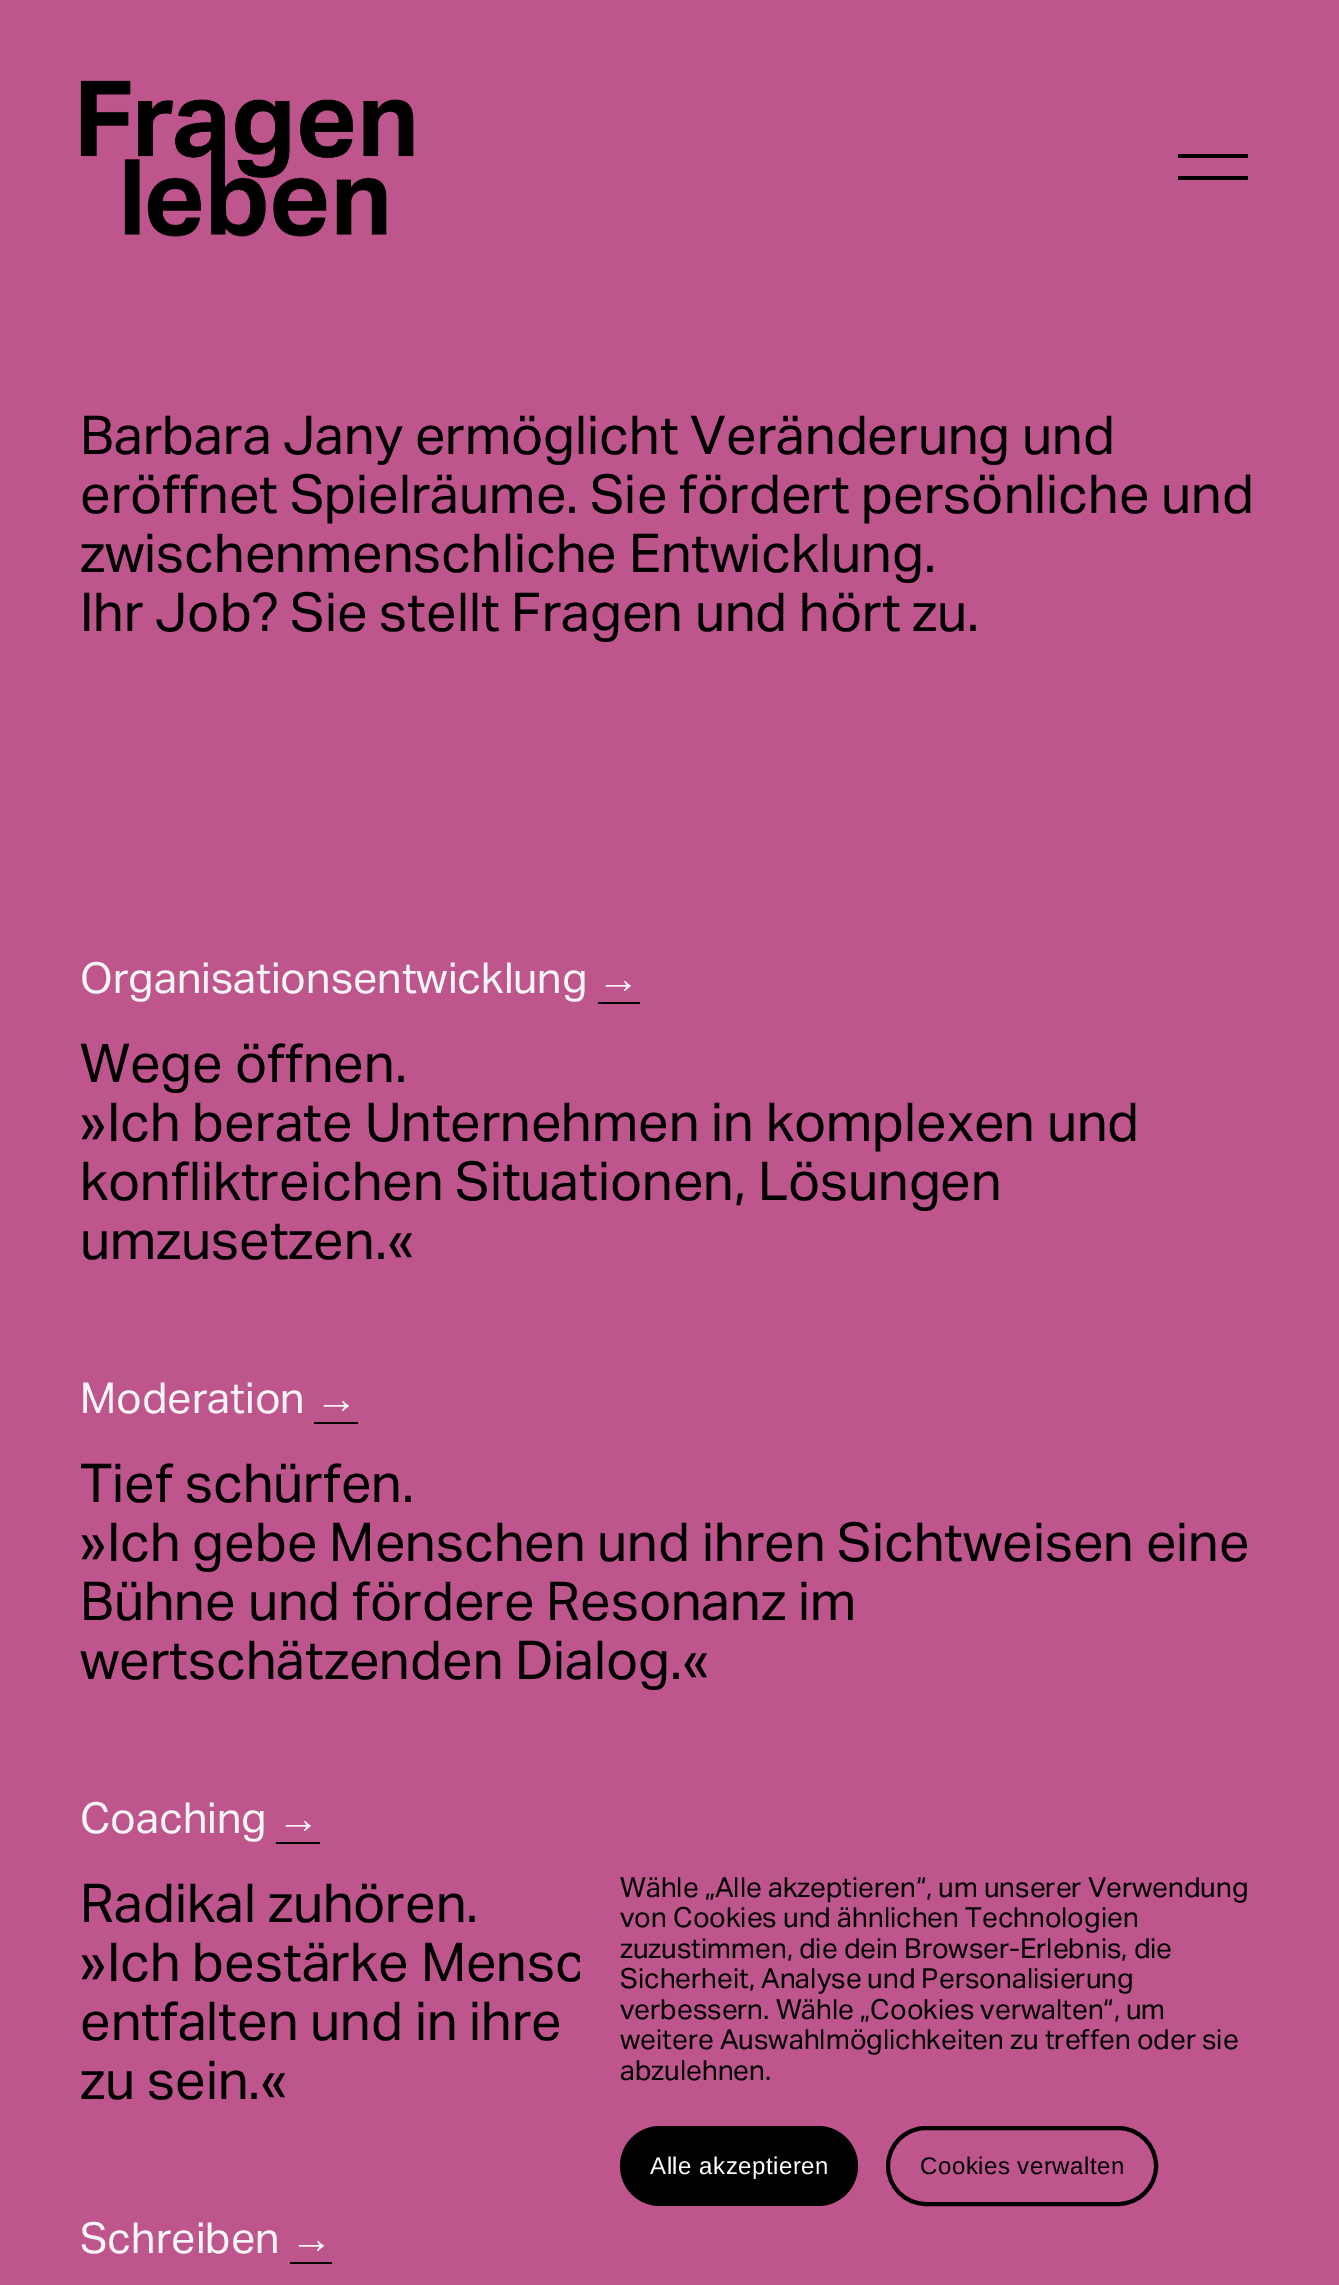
%!PS-Adobe-3.0
%%BoundingBox: 0 0 1339 2285
%%LanguageLevel: 3
%%Pages: 1
%%EndComments
%%BeginProlog
/m { moveto } bind def
/f { fill } bind def
/S { stroke } bind def
/w { setlinewidth } bind def
/fn { [ exch dup neg 0 0 3 -1 roll 0 0 ] selectfont } def
/tx { moveto show } def
/bx { rectfill } def
/rr { 5 dict begin { /r /h /w /y /x } { exch def } forall
  x r add y moveto x w add y 2 copy h add r arct x w add y h add x 1 index r arct
  x y h add x y r arct x y 2 copy exch w add exch r arct closepath end } def
/im { 5 dict begin { /h /w /y /x /name } { exch def } forall
  gsave x y translate w h scale
  w h 8 [w 0 0 h 0 0] name (r) file false 3 colorimage grestore end } def
%%EndProlog
%%BeginSetup
<< /PageSize [1339 2285] >> setpagedevice
%%EndSetup
%%Page: 1 1
0 2285 translate 1 -1 scale
4 setmiterlimit
0.745 0.333 0.553 setrgbcolor
0 0 1339 2285 bx
(image0.raw) 80 80 334 157 im
0 setgray
1178 154 70 4 bx
1178 176 70 4 bx
/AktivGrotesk-Regular 53.6 fn
(Barbara Jany ermöglicht Veränderung und) 80 454 tx
(eröffnet Spielräume. Sie fördert persönliche und) 80 513 tx
(zwischenmenschliche Entwicklung.) 80 572 tx
(Ihr Job? Sie stellt Fragen und hört zu.) 80 631 tx
/AktivGrotesk-Regular 42.75 fn
0.961 setgray
(Organisationsentwicklung) 80 993 tx
/LiberationSerif-Regular 42.75 fn
(→) 597 993 tx
0 setgray
598 1002 42 2 bx
/AktivGrotesk-Regular 53.6 fn
(Wege öffnen.) 80 1082 tx
(»Ich berate Unternehmen in komplexen und) 80 1141 tx
(konfliktreichen Situationen, Lösungen) 80 1200 tx
(umzusetzen.«) 80 1259 tx
/AktivGrotesk-Regular 42.75 fn
0.961 setgray
(Moderation) 80 1413 tx
/LiberationSerif-Regular 42.75 fn
(→) 315 1413 tx
0 setgray
314 1422 44 2 bx
/AktivGrotesk-Regular 53.6 fn
(Tief schürfen.) 80 1502 tx
(»Ich gebe Menschen und ihren Sichtweisen eine) 80 1561 tx
(Bühne und fördere Resonanz im) 80 1620 tx
(wertschätzenden Dialog.«) 80 1679 tx
/AktivGrotesk-Regular 42.75 fn
0.961 setgray
(Coaching) 80 1833 tx
/LiberationSerif-Regular 42.75 fn
(→) 277 1833 tx
0 setgray
276 1842 44 2 bx
/AktivGrotesk-Regular 53.6 fn
(Radikal zuhören.) 80 1922 tx
(»Ich bestärke Mensc) 80 1981 tx
(entfalten und in ihre) 80 2040 tx
(zu sein.«) 80 2099 tx
/AktivGrotesk-Regular 42.75 fn
0.961 setgray
(Schreiben) 80 2253 tx
/LiberationSerif-Regular 42.75 fn
(→) 290 2253 tx
0 setgray
290 2262 42 2 bx
0.745 0.333 0.553 setrgbcolor
580 1956 3 23 bx
/AktivGrotesk-Regular 27.7 fn
0 setgray
(Wähle „Alle akzeptieren“, um unserer Verwendung) 620 1897 tx
(von Cookies und ähnlichen Technologien) 620 1927 tx
(zuzustimmen, die dein Browser-Erlebnis, die) 620 1958 tx
(Sicherheit, Analyse und Personalisierung) 620 1988 tx
(verbessern. Wähle „Cookies verwalten“, um) 620 2019 tx
(weitere Auswahlmöglichkeiten zu treffen oder sie) 620 2049 tx
(abzulehnen.) 620 2080 tx
620 2126 238 80 40 rr f
/LiberationSans-Regular 24 fn
1 setgray
650 2174 m 0.5 0 (Alle akzeptieren) ashow
0 setgray
4 w
888 2128 268 76 38 rr S
920 2174 m 0.5 0 (Cookies verwalten) ashow
showpage
%%EOF
